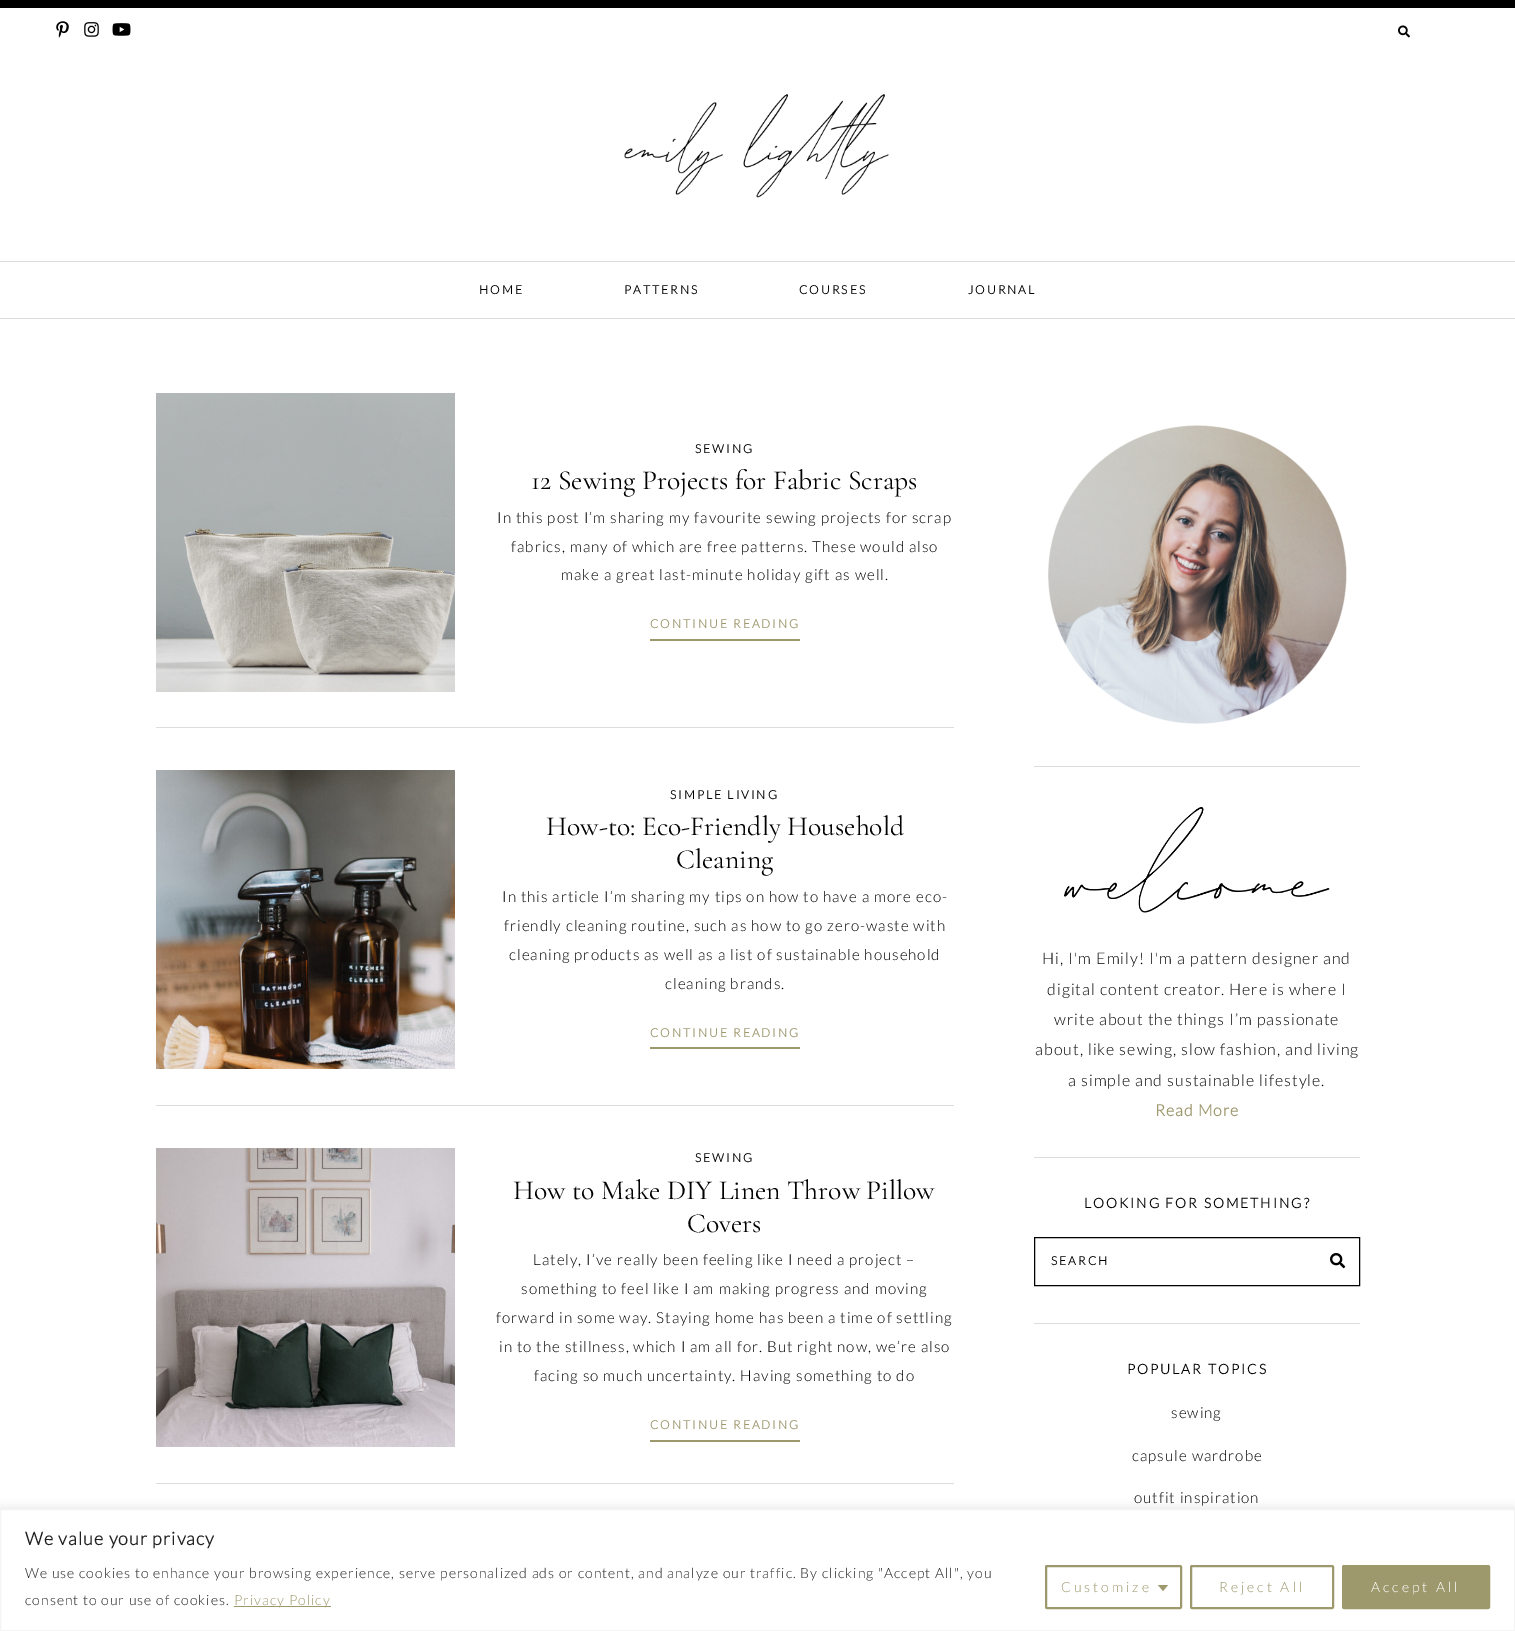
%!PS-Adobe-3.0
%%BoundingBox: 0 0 1515 1631
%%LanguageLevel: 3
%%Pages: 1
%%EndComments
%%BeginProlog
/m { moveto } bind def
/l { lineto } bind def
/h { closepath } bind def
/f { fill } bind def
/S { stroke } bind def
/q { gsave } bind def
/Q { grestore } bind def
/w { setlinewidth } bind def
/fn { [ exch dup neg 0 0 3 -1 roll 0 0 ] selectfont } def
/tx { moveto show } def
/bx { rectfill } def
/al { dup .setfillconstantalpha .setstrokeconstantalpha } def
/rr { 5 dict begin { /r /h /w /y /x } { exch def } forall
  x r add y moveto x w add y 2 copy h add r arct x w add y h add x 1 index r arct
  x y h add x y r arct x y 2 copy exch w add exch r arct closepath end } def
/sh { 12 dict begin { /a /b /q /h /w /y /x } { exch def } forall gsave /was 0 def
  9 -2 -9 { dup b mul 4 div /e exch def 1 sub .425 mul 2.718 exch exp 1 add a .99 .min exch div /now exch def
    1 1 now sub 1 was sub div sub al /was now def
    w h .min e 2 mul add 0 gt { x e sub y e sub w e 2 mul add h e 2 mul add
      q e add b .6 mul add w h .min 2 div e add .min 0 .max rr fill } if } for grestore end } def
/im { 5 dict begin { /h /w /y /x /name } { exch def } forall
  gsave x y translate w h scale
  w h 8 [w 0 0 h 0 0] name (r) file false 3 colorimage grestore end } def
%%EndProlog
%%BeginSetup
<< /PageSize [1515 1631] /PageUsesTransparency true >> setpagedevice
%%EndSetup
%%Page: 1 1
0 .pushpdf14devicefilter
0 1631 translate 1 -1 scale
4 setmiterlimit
1 setgray
0 0 1515 1631 bx
0 setgray
0 0 1515 8 bx
(image0.raw) 56 21 13 17 im
(image1.raw) 84 22 15 15 im
(image2.raw) 112 23 19 13 im
(image3.raw) 1398 25 12 13 im
(image4.raw) 624 94 265 104 im
0.867 setgray
0 261 1515 1 bx
0 318 1515 1 bx
/Lato-Bold 12 fn
0 setgray
479 294 m 2 0 (HOME) ashow
624 294 m 2 0 (PATTERNS) ashow
799 294 m 2 0 (COURSES) ashow
968 294 m 2 0 (JOURNAL) ashow
0.867 setgray
156 727 798 1 bx
(image5.raw) 156 393 299 299 im
0 setgray
695 453 m 2 0 (SEWING) ashow
/CormorantGaramond-Light 27.6 fn
(12 Sewing Projects for Fabric Scraps) 531 489 tx
/Lato-Light 15.2 fn
497 523 m 1 0 (In this post I’m sharing my favourite sewing projects for scrap) ashow
511 552 m 1 0 (fabrics, many of which are free patterns. These would also) ashow
561 580 m 1 0 (make a great last-minute holiday gift as well.) ashow
0.62 0.596 0.427 setrgbcolor
650 639 150 2 bx
/Lato-Bold 12 fn
650 628 m 2 0 (CONTINUE READING) ashow
0.867 setgray
156 1105 798 1 bx
(image6.raw) 156 770 299 299 im
0 setgray
670 799 m 2 0 (SIMPLE LIVING) ashow
/CormorantGaramond-Light 27.6 fn
(How-to: Eco-Friendly Household) 546 835 tx
(Cleaning) 676 868 tx
/Lato-Light 15.2 fn
502 902 m 1 0 (In this article I’m sharing my tips on how to have a more eco-) ashow
504 931 m 1 0 (friendly cleaning routine, such as how to go zero-waste with) ashow
509 960 m 1 0 (cleaning products as well as a list of sustainable household) ashow
665 989 m 1 0 (cleaning brands.) ashow
0.62 0.596 0.427 setrgbcolor
650 1047 150 2 bx
/Lato-Bold 12 fn
650 1037 m 2 0 (CONTINUE READING) ashow
0.867 setgray
156 1483 798 1 bx
(image7.raw) 156 1148 299 299 im
0 setgray
695 1162 m 2 0 (SEWING) ashow
/CormorantGaramond-Light 27.6 fn
(How to Make DIY Linen Throw Pillow) 513 1199 tx
(Covers) 687 1232 tx
/Lato-Light 15.2 fn
533 1265 m 1 0 (Lately, I’ve really been feeling like I need a project –) ashow
521 1294 m 1 0 (something to feel like I am making progress and moving) ashow
496 1323 m 1 0 (forward in some way. Staying home has been a time of settling) ashow
499 1352 m 1 0 (in to the stillness, which I am all for. But right now, we’re also) ashow
534 1381 m 1 0 (facing so much uncertainty. Having something to do) ashow
0.62 0.596 0.427 setrgbcolor
650 1440 150 2 bx
/Lato-Bold 12 fn
650 1429 m 2 0 (CONTINUE READING) ashow
0.867 setgray
1034 766 326 1 bx
(image8.raw) 1048 425 299 299 im
1034 1157 326 1 bx
(image9.raw) 1064 807 266 106 im
/Lato-Light 16 fn
0 setgray
1042 964 m 1 0 (Hi, I'm Emily! I'm a pattern designer and) ashow
1047 995 m 1 0 (digital content creator. Here is where I) ashow
1054 1025 m 1 0 (write about the things I’m passionate) ashow
1035 1055 m 1 0 (about, like sewing, slow fashion, and living) ashow
1068 1086 m 1 0 (a simple and sustainable lifestyle.) ashow
/Lato-Bold 16 fn
0.62 0.596 0.427 setrgbcolor
1155 1116 m 1 0 (Read More) ashow
0.867 setgray
1034 1323 326 1 bx
/Lato-Bold 13.75 fn
0 setgray
1084 1208 m 2 0 (LOOKING FOR SOMETHING?) ashow
1034.5 1237.5 325 48 rectstroke
/Lato-Bold 12 fn
1051 1265 m 2 0 (SEARCH) ashow
(image10.raw) 1330 1253 16 16 im
/Lato-Bold 13.75 fn
1127 1374 m 2 0 (POPULAR TOPICS) ashow
/Lato-Light 15.2 fn
1171 1418 m 1 0 (sewing) ashow
1132 1461 m 1 0 (capsule wardrobe) ashow
1134 1503 m 1 0 (outfit inspiration) ashow
0.675 0.671 0.671 setrgbcolor
0 1508 1515 122 0 5 0.3 sh
1 setgray
0.5 1509.5 m 1514.5 1509.5 l 1514.5 1630.5 l 0.5 1630.5 l h q f Q
0.957 setgray
S
/Lato-Bold 18 fn
0.129 setgray
25 1545 m 1 0 (We value your privacy) ashow
/Lato-Light 14 fn
25 1578 m 1 0 (We use cookies to enhance your browsing experience, serve personalized ads or content, and analyze our traffic. By clicking "Accept All", you) ashow
25 1605 m 1 0 (consent to our use of cookies.) ashow
0.62 0.596 0.427 setrgbcolor
234 1606 97 1 bx
234 1605 m 1 0 (Privacy Policy) ashow
2 w
1046 1566 135 42 1 rr S
1061 1592 m 3 0 (Customize) ashow
1158 1585 m 1168 1585 l 1163 1591 l h f
1191 1566 142 42 1 rr S
1219 1592 m 3 0 (Reject All) ashow
1343 1566 146 42 1 rr q f Q
S
1 setgray
1371 1592 m 3 0 (Accept All) ashow
.poppdf14devicefilter showpage
%%EOF
